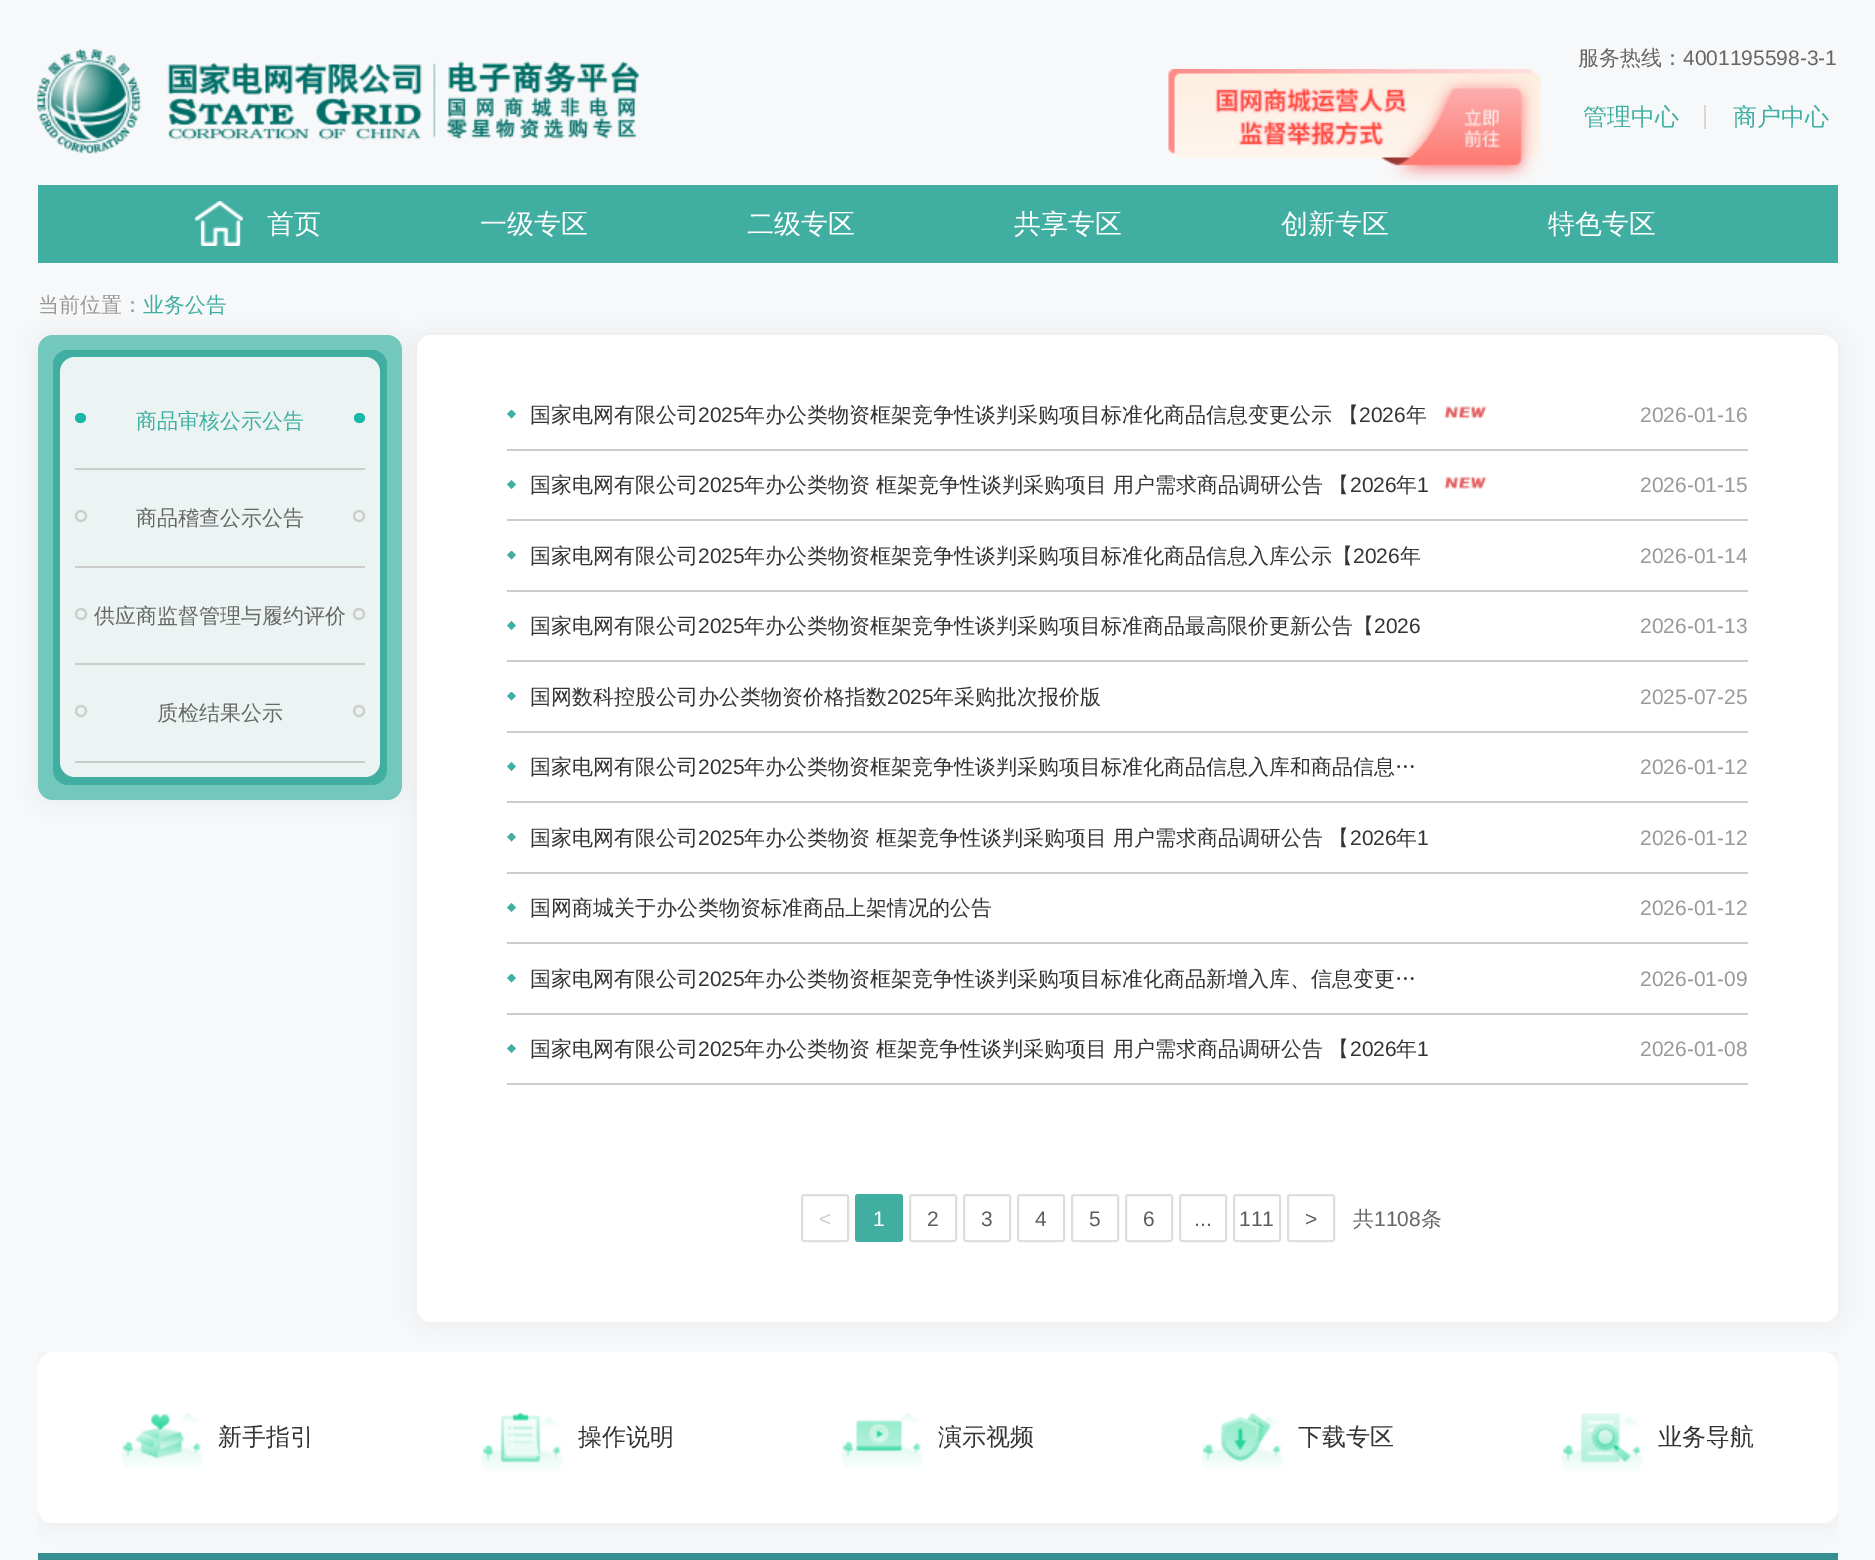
%!PS-Adobe-3.0
%%BoundingBox: 0 0 1875 1560
%%LanguageLevel: 3
%%Pages: 1
%%EndComments
%%BeginProlog
/m { moveto } bind def
/l { lineto } bind def
/c { curveto } bind def
/h { closepath } bind def
/f { fill } bind def
/S { stroke } bind def
/q { gsave } bind def
/Q { grestore } bind def
/w { setlinewidth } bind def
/fn { [ exch dup neg 0 0 3 -1 roll 0 0 ] selectfont } def
/tx { moveto show } def
/bx { rectfill } def
/al { dup .setfillconstantalpha .setstrokeconstantalpha } def
/ci { newpath 0 360 arc closepath } def
/rr { 5 dict begin { /r /h /w /y /x } { exch def } forall
  x r add y moveto x w add y 2 copy h add r arct x w add y h add x 1 index r arct
  x y h add x y r arct x y 2 copy exch w add exch r arct closepath end } def
/sh { 12 dict begin { /a /b /q /h /w /y /x } { exch def } forall gsave /was 0 def
  9 -2 -9 { dup b mul 4 div /e exch def 1 sub .425 mul 2.718 exch exp 1 add a .99 .min exch div /now exch def
    1 1 now sub 1 was sub div sub al /was now def
    w h .min e 2 mul add 0 gt { x e sub y e sub w e 2 mul add h e 2 mul add
      q e add b .6 mul add w h .min 2 div e add .min 0 .max rr fill } if } for grestore end } def
/im { 5 dict begin { /h /w /y /x /name } { exch def } forall
  gsave x y translate w h scale
  w h 8 [w 0 0 h 0 0] name (r) file false 3 colorimage grestore end } def
%%EndProlog
%%BeginSetup
<< /PageSize [1875 1560] /PageUsesTransparency true >> setpagedevice
%%EndSetup
%%Page: 1 1
0 .pushpdf14devicefilter
0 1560 translate 1 -1 scale
4 setmiterlimit
0.969 0.973 0.976 setrgbcolor
0 0 1875 1560 bx
(image0.raw) 37 49 602 105 im
/WenQuanYiZenHei-Medium 21 fn
0.4 setgray
(服务热线：) 1578 65 tx
/LiberationSans-Regular 21 fn
(4001195598-3-1) 1683 65 tx
(image1.raw) 1168 69 373 113 im
/WenQuanYiZenHei-Medium 24 fn
0.251 0.682 0.631 setrgbcolor
(管理中心) 1583 125 tx
0.847 setgray
1704 105 2 24 bx
0.251 0.682 0.631 setrgbcolor
(商户中心) 1733 125 tx
38 185 1800 78 bx
(image2.raw) 195 201 48 45 im
/WenQuanYiZenHei-Medium 27 fn
1 setgray
(首页) 267 233 tx
(一级专区) 480 233 tx
(二级专区) 747 233 tx
(共享专区) 1014 233 tx
(创新专区) 1281 233 tx
(特色专区) 1548 233 tx
/WenQuanYiZenHei-Medium 21 fn
0.6 setgray
(当前位置：) 38 312 tx
0.251 0.682 0.631 setrgbcolor
(业务公告) 143 312 tx
0.4 setgray
38 335 364 465 15 10.5 0.1 sh
0.451 0.784 0.745 setrgbcolor
38 335 364 465 15 rr f
0.251 0.682 0.631 setrgbcolor
53 350 334 435 15 rr f
0.925 0.957 0.953 setrgbcolor
60 357 320 420 15 rr f
0.8 setgray
75 468 290 2 bx
0.102 0.722 0.667 setrgbcolor
75 413 11 10 5 rr f
0.251 0.682 0.631 setrgbcolor
(商品审核公示公告) 136 428 tx
0.102 0.722 0.667 setrgbcolor
354 413 11 10 5 rr f
0.8 setgray
75 566 290 2 bx
2 w
81 516 5 ci S
0.4 setgray
(商品稽查公示公告) 136 525 tx
0.8 setgray
359 516 5 ci S
75 663 290 2 bx
81 614 5 ci S
0.4 setgray
(供应商监督管理与履约评价) 94 623 tx
0.8 setgray
359 614 5 ci S
75 761 290 2 bx
81 711 5 ci S
0.4 setgray
(质检结果公示) 157 720 tx
0.8 setgray
359 711 5 ci S
0.208 0.557 0.576 setrgbcolor
38 1553 1800 7 bx
q
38 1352 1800 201 rectclip
0.4 setgray
38 1352 1800 171 15 10.5 0.1 sh
Q
1 setgray
38 1352 1800 171 15 rr f
0.4 setgray
417 335 1421 987 15 10.5 0.1 sh
1 setgray
417 335 1421 987 15 rr f
0.8 setgray
507 449 1241 2 bx
0.251 0.682 0.631 setrgbcolor
511.5 410 m 512 410 l 516 414 l 511.5 418.5 l 507 414 l 511 410 l h f
0.2 setgray
(国家电网有限公司) 530 422 tx
/LiberationSans-Regular 21 fn
(2025) 698 422 tx
/WenQuanYiZenHei-Medium 21 fn
744 422 m -0.5 0 32 (年办公类物资框架竞争性谈判采购项目标准化商品信息变更公示 【) widthshow
/LiberationSans-Regular 21 fn
(2026) 1359 422 tx
/WenQuanYiZenHei-Medium 21 fn
(年) 1406 422 tx
(image3.raw) 1444 406 43 13 im
/LiberationSans-Regular 21 fn
0.6 setgray
(2026-01-16) 1640 422 tx
0.8 setgray
507 519 1241 2 bx
0.251 0.682 0.631 setrgbcolor
511.5 480 m 507 484.5 l 511.5 489 l 516 484.5 l h f
/WenQuanYiZenHei-Medium 21 fn
0.2 setgray
(国家电网有限公司) 530 492 tx
/LiberationSans-Regular 21 fn
(2025) 698 492 tx
/WenQuanYiZenHei-Medium 21 fn
744 492 m -0.5 0 32 (年办公类物资 框架竞争性谈判采购项目 用户需求商品调研公告 【) widthshow
/LiberationSans-Regular 21 fn
(2026) 1350 492 tx
/WenQuanYiZenHei-Medium 21 fn
(年) 1396 492 tx
/LiberationSans-Regular 21 fn
(1) 1417 492 tx
(image4.raw) 1444 477 43 12 im
0.6 setgray
(2026-01-15) 1640 492 tx
0.8 setgray
507 590 1241 2 bx
0.251 0.682 0.631 setrgbcolor
511.5 551 m 512 551 l 516 555 l 511.5 559.5 l 507 555 l 511 551 l h f
/WenQuanYiZenHei-Medium 21 fn
0.2 setgray
(国家电网有限公司) 530 563 tx
/LiberationSans-Regular 21 fn
(2025) 698 563 tx
/WenQuanYiZenHei-Medium 21 fn
(年办公类物资框架竞争性谈判采购项目标准化商品信息入库公示【) 744 563 tx
/LiberationSans-Regular 21 fn
(2026) 1353 563 tx
/WenQuanYiZenHei-Medium 21 fn
(年) 1400 563 tx
/LiberationSans-Regular 21 fn
0.6 setgray
(2026-01-14) 1640 563 tx
0.8 setgray
507 660 1241 2 bx
0.251 0.682 0.631 setrgbcolor
511.5 621 m 507 625.5 l 511.5 630 l 516 625.5 l h f
/WenQuanYiZenHei-Medium 21 fn
0.2 setgray
(国家电网有限公司) 530 633 tx
/LiberationSans-Regular 21 fn
(2025) 698 633 tx
/WenQuanYiZenHei-Medium 21 fn
(年办公类物资框架竞争性谈判采购项目标准商品最高限价更新公告【) 744 633 tx
/LiberationSans-Regular 21 fn
(2026) 1374 633 tx
0.6 setgray
(2026-01-13) 1640 633 tx
0.8 setgray
507 731 1241 2 bx
0.251 0.682 0.631 setrgbcolor
511.5 692 m 512 692 l 516 696 l 511.5 700.5 l 507 696 l 511 692 l h f
/WenQuanYiZenHei-Medium 21 fn
0.2 setgray
(国网数科控股公司办公类物资价格指数) 530 704 tx
/LiberationSans-Regular 21 fn
(2025) 887 704 tx
/WenQuanYiZenHei-Medium 21 fn
(年采购批次报价版) 933 704 tx
/LiberationSans-Regular 21 fn
0.6 setgray
(2025-07-25) 1640 704 tx
0.8 setgray
507 801 1241 2 bx
0.251 0.682 0.631 setrgbcolor
511.5 762 m 507 766.5 l 511.5 771 l 516 766.5 l h f
/WenQuanYiZenHei-Medium 21 fn
0.2 setgray
(国家电网有限公司) 530 774 tx
/LiberationSans-Regular 21 fn
(2025) 698 774 tx
/WenQuanYiZenHei-Medium 21 fn
(年办公类物资框架竞争性谈判采购项目标准化商品信息入库和商品信息…) 744 774 tx
/LiberationSans-Regular 21 fn
0.6 setgray
(2026-01-12) 1640 774 tx
0.8 setgray
507 872 1241 2 bx
0.251 0.682 0.631 setrgbcolor
511.5 833 m 512 833 l 516 837 l 511.5 841.5 l 507 837 l 511 833 l h f
/WenQuanYiZenHei-Medium 21 fn
0.2 setgray
(国家电网有限公司) 530 845 tx
/LiberationSans-Regular 21 fn
(2025) 698 845 tx
/WenQuanYiZenHei-Medium 21 fn
744 845 m -0.5 0 32 (年办公类物资 框架竞争性谈判采购项目 用户需求商品调研公告 【) widthshow
/LiberationSans-Regular 21 fn
(2026) 1350 845 tx
/WenQuanYiZenHei-Medium 21 fn
(年) 1396 845 tx
/LiberationSans-Regular 21 fn
(1) 1417 845 tx
0.6 setgray
(2026-01-12) 1640 845 tx
0.8 setgray
507 942 1241 2 bx
0.251 0.682 0.631 setrgbcolor
511.5 903 m 507 907.5 l 511.5 912 l 516 907.5 l h f
/WenQuanYiZenHei-Medium 21 fn
0.2 setgray
(国网商城关于办公类物资标准商品上架情况的公告) 530 915 tx
/LiberationSans-Regular 21 fn
0.6 setgray
(2026-01-12) 1640 915 tx
0.8 setgray
507 1013 1241 2 bx
0.251 0.682 0.631 setrgbcolor
511.5 974 m 512 974 l 516 978 l 511.5 982.5 l 507 978 l 511 974 l h f
/WenQuanYiZenHei-Medium 21 fn
0.2 setgray
(国家电网有限公司) 530 986 tx
/LiberationSans-Regular 21 fn
(2025) 698 986 tx
/WenQuanYiZenHei-Medium 21 fn
(年办公类物资框架竞争性谈判采购项目标准化商品新增入库、信息变更…) 744 986 tx
/LiberationSans-Regular 21 fn
0.6 setgray
(2026-01-09) 1640 986 tx
0.8 setgray
507 1083 1241 2 bx
0.251 0.682 0.631 setrgbcolor
511.5 1044 m 507 1048.5 l 511.5 1053 l 516 1048.5 l h f
/WenQuanYiZenHei-Medium 21 fn
0.2 setgray
(国家电网有限公司) 530 1056 tx
/LiberationSans-Regular 21 fn
(2025) 698 1056 tx
/WenQuanYiZenHei-Medium 21 fn
744 1056 m -0.5 0 32 (年办公类物资 框架竞争性谈判采购项目 用户需求商品调研公告 【) widthshow
/LiberationSans-Regular 21 fn
(2026) 1350 1056 tx
/WenQuanYiZenHei-Medium 21 fn
(年) 1396 1056 tx
/LiberationSans-Regular 21 fn
(1) 1417 1056 tx
0.6 setgray
(2026-01-08) 1640 1056 tx
1 setgray
417 1149 m 1838 1149 l 1838 1307 l 1838 1315.5 1831.5 1322 1823 1322 c 432 1322 l 423.5 1322 417 1315.5 417 1307 c h f
0.863 0.871 0.878 setrgbcolor
802 1195 46 46 2 rr S
0.804 setgray
(<) 819 1226 tx
0.251 0.682 0.631 setrgbcolor
855 1194 48 48 3 rr f
1 setgray
(1) 873 1226 tx
0.863 0.871 0.878 setrgbcolor
910 1195 46 46 2 rr S
0.369 setgray
(2) 927 1226 tx
0.863 0.871 0.878 setrgbcolor
964 1195 46 46 2 rr S
0.369 setgray
(3) 981 1226 tx
0.863 0.871 0.878 setrgbcolor
1018 1195 46 46 2 rr S
0.369 setgray
(4) 1035 1226 tx
0.863 0.871 0.878 setrgbcolor
1072 1195 46 46 2 rr S
0.369 setgray
(5) 1089 1226 tx
0.863 0.871 0.878 setrgbcolor
1126 1195 46 46 2 rr S
0.369 setgray
(6) 1143 1226 tx
0.863 0.871 0.878 setrgbcolor
1180 1195 46 46 2 rr S
0.369 setgray
(...) 1194 1226 tx
0.863 0.871 0.878 setrgbcolor
1234 1195 46 46 2 rr S
0.369 setgray
(111) 1239 1226 tx
0.863 0.871 0.878 setrgbcolor
1288 1195 46 46 2 rr S
0.369 setgray
(>) 1305 1226 tx
/WenQuanYiZenHei-Medium 21 fn
0.4 setgray
(共) 1353 1226 tx
/LiberationSans-Regular 21 fn
(1108) 1374 1226 tx
/WenQuanYiZenHei-Medium 21 fn
(条) 1421 1226 tx
(image5.raw) 121 1413 82 55 im
/WenQuanYiZenHei-Medium 24 fn
0.2 setgray
(新手指引) 218 1445 tx
(image6.raw) 481 1412 82 60 im
(操作说明) 578 1445 tx
(image7.raw) 841 1413 82 55 im
(演示视频) 938 1445 tx
(image8.raw) 1201 1412 82 59 im
(下载专区) 1298 1445 tx
(image9.raw) 1561 1413 82 59 im
(业务导航) 1658 1445 tx
.poppdf14devicefilter showpage
%%EOF
